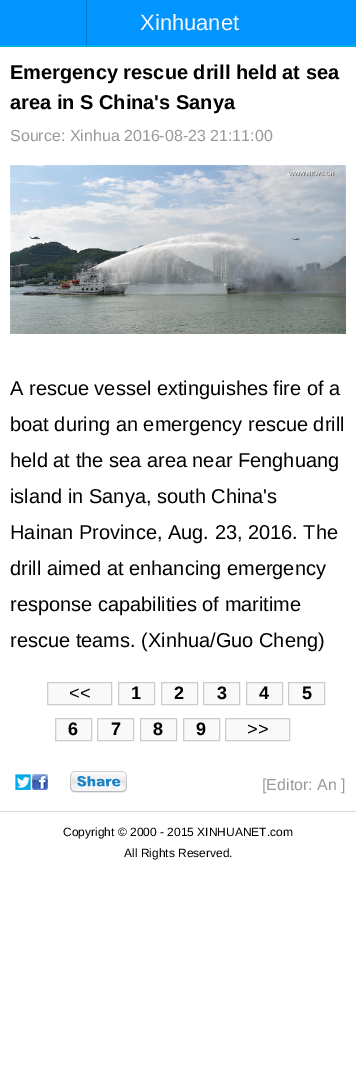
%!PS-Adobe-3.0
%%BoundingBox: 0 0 356 1070
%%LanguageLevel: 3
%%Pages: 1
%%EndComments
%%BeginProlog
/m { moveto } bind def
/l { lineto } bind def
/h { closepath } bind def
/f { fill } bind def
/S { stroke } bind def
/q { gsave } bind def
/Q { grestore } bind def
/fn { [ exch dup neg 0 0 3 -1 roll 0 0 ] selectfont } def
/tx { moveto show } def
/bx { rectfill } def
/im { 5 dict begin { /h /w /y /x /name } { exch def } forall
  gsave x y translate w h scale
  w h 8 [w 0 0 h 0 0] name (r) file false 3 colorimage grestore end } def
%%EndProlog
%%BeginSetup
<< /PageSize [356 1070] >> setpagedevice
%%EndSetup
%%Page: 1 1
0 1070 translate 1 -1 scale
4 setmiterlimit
1 setgray
0 0 356 1070 bx
0.004 0.584 1 setrgbcolor
0 0 356 45 bx
0 0.671 0.906 setrgbcolor
0 45 356 2 bx
0 0.475 0.784 setrgbcolor
86 0 1 45 bx
/LiberationSans-Regular 22 fn
0.957 0.969 0.988 setrgbcolor
(Xinhuanet) 140 30 tx
/LiberationSans-Bold 20 fn
0 setgray
(Emergency rescue drill held at sea) 10 79 tx
(area in S China's Sanya) 10 109 tx
/LiberationSans-Regular 16 fn
0.6 setgray
(Source: Xinhua 2016-08-23 21:11:00) 10 141 tx
(image0.raw) 10 165 336 169 im
/LiberationSans-Regular 20 fn
0 setgray
(A rescue vessel extinguishes fire of a) 10 395 tx
(boat during an emergency rescue drill) 10 431 tx
(held at the sea area near Fenghuang) 10 467 tx
(island in Sanya, south China's) 10 503 tx
(Hainan Province, Aug. 23, 2016. The) 10 539 tx
(drill aimed at enhancing emergency) 10 575 tx
(response capabilities of maritime) 10 611 tx
(rescue teams. \(Xinhua/Guo Cheng\)) 10 647 tx
0.976 setgray
47.5 682.5 m 111.5 682.5 l 111.5 704.5 l 47.5 704.5 l h q f Q
0.8 setgray
S
/LiberationSans-Regular 18 fn
0 setgray
(<<) 69 699 tx
0.976 setgray
118.5 682.5 m 154.5 682.5 l 154.5 704.5 l 118.5 704.5 l h q f Q
0.8 setgray
S
/LiberationSans-Bold 18 fn
0 setgray
(1) 131 699 tx
0.976 setgray
161.5 682.5 m 197.5 682.5 l 197.5 704.5 l 161.5 704.5 l h q f Q
0.8 setgray
S
0 setgray
(2) 174 699 tx
0.976 setgray
203.5 682.5 m 239.5 682.5 l 239.5 704.5 l 203.5 704.5 l h q f Q
0.8 setgray
S
0 setgray
(3) 217 699 tx
0.976 setgray
246.5 682.5 m 282.5 682.5 l 282.5 704.5 l 246.5 704.5 l h q f Q
0.8 setgray
S
0 setgray
(4) 259 699 tx
0.976 setgray
288.5 682.5 m 324.5 682.5 l 324.5 704.5 l 288.5 704.5 l h q f Q
0.8 setgray
S
0 setgray
(5) 302 699 tx
0.976 setgray
55.5 718.5 m 91.5 718.5 l 91.5 740.5 l 55.5 740.5 l h q f Q
0.8 setgray
S
0 setgray
(6) 68 735 tx
0.976 setgray
97.5 718.5 m 133.5 718.5 l 133.5 740.5 l 97.5 740.5 l h q f Q
0.8 setgray
S
0 setgray
(7) 111 735 tx
0.976 setgray
140.5 718.5 m 176.5 718.5 l 176.5 740.5 l 140.5 740.5 l h q f Q
0.8 setgray
S
0 setgray
(8) 153 735 tx
0.976 setgray
183.5 718.5 m 219.5 718.5 l 219.5 740.5 l 183.5 740.5 l h q f Q
0.8 setgray
S
0 setgray
(9) 196 735 tx
0.976 setgray
225.5 718.5 m 289.5 718.5 l 289.5 740.5 l 225.5 740.5 l h q f Q
0.8 setgray
S
/LiberationSans-Regular 18 fn
0 setgray
(>>) 247 735 tx
(image1.raw) 15 774 16 16 im
(image2.raw) 32 774 16 16 im
(image3.raw) 70 771 57 22 im
/LiberationSans-Regular 16 fn
0.6 setgray
([Editor: An ]) 262 790 tx
0.859 0.855 0.855 setrgbcolor
0 811 356 1 bx
/LiberationSans-Regular 12 fn
0 setgray
(Copyright © 2000 - 2015 XINHUANET.com) 63 836 tx
(All Rights Reserved.) 124 857 tx
showpage
%%EOF
